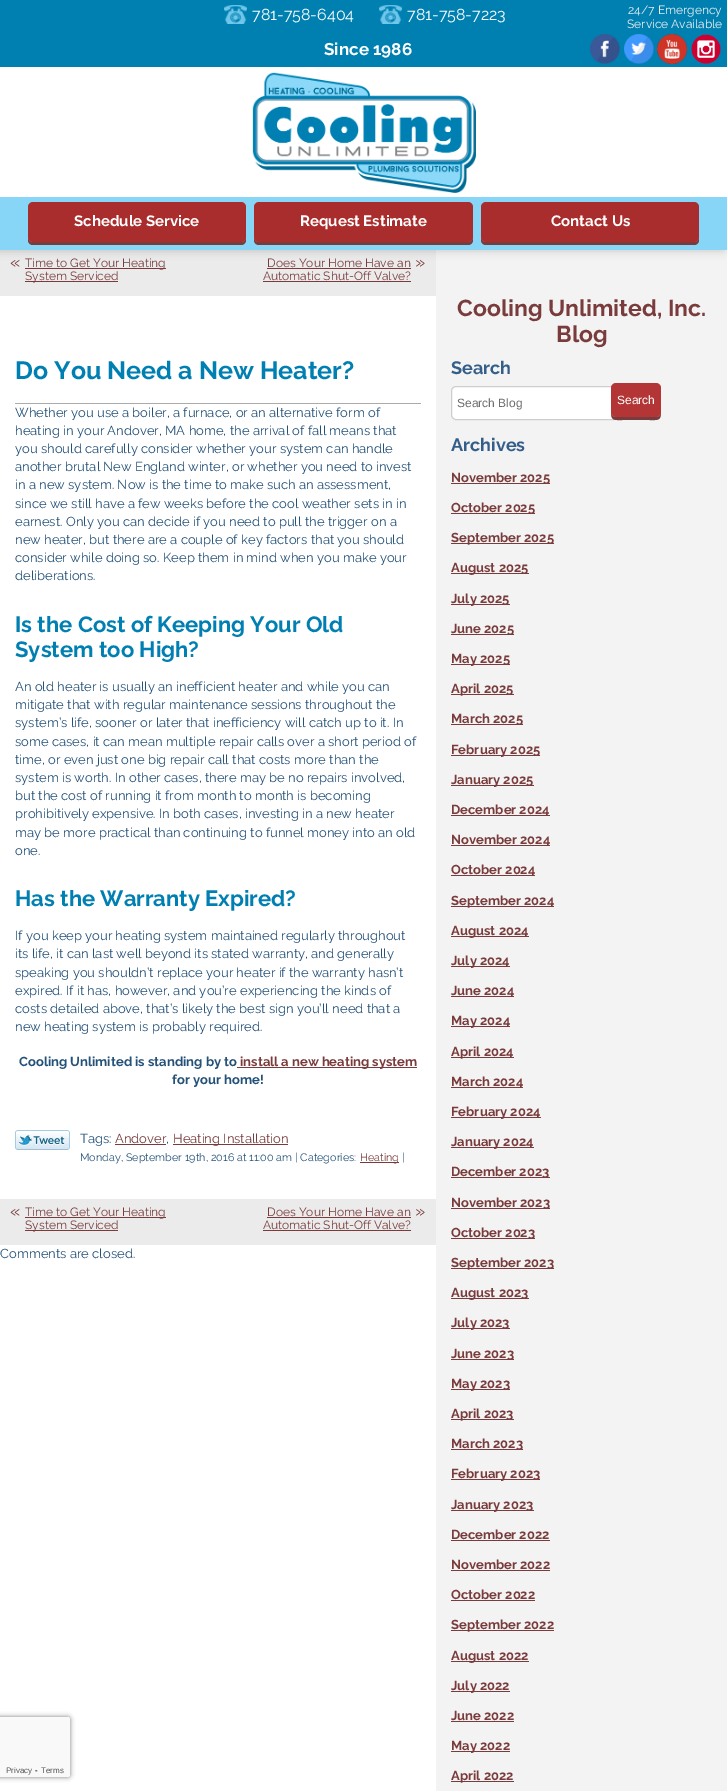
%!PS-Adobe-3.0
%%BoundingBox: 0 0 727 1791
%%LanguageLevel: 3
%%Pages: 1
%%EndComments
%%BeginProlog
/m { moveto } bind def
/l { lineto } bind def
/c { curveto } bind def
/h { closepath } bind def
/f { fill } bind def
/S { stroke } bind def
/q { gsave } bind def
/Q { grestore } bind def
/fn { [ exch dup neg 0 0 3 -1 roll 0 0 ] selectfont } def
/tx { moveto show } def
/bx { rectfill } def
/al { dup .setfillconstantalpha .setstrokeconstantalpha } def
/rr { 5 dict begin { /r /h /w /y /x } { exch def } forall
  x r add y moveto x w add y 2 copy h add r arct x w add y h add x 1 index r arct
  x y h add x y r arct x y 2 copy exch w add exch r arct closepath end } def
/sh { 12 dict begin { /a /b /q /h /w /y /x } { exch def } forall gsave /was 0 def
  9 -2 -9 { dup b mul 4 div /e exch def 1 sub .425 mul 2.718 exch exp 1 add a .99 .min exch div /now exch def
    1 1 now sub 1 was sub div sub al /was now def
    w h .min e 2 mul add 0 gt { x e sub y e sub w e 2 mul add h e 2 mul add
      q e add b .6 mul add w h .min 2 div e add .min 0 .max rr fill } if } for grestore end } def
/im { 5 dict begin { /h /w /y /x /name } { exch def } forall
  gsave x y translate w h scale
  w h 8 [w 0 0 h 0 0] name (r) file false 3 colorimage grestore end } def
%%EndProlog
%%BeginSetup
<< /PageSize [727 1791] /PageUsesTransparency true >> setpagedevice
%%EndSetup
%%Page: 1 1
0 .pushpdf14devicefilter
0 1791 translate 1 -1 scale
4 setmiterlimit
0 0.502 0.694 setrgbcolor
0 0 727 1791 bx
(image0.raw) 224 5 23 19 im
/Raleway-Regular 16 fn
1 setgray
(781-758-6404) 252 20 tx
(image0.raw) 379 5 23 19 im
(781-758-7223) 407 20 tx
/Raleway-Regular 12 fn
0.937 setgray
(24/7 Emergency) 628 14 tx
(Service Available) 627 28 tx
/Raleway-Bold 17 fn
1 setgray
(Since 1986) 324 55 tx
(image1.raw) 590 34 30 30 im
(image2.raw) 624 34 30 30 im
(image3.raw) 657 34 30 30 im
(image4.raw) 691 34 30 30 im
0.922 setgray
0 250 436 46 bx
0.953 setgray
436 250 291 1541 bx
0 setgray
-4 199 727 50 0 5 0.25 sh
1 setgray
0 67 727 130 bx
(image5.raw) 252 72 224 121 im
0.533 0.839 0.969 setrgbcolor
0 197 727 53 bx
0.475 0.231 0.231 setrgbcolor
28 237 m 28 240 l 28 243 30 245 33 245 c 241 245 l 244 245 246 243 246 240 c 246 237 l 246 240 244 242 241 242 c 33 242 l 30 242 28 240 28 237 c h f
0.667 0.176 0.176 setrgbcolor
28 202 218 40 5 rr f
/Raleway-Bold 15 fn
1 setgray
(Schedule Service) 74 226 tx
0.475 0.231 0.231 setrgbcolor
254 237 m 254 240 l 254 243 256 245 259 245 c 468 245 l 471 245 473 243 473 240 c 473 237 l 473 240 471 242 468 242 c 259 242 l 256 242 254 240 254 237 c h f
0.667 0.176 0.176 setrgbcolor
254 202 219 40 5 rr f
1 setgray
(Request Estimate) 300 226 tx
0.475 0.231 0.231 setrgbcolor
481 237 m 481 240 l 481 243 483 245 486 245 c 694 245 l 697 245 699 243 699 240 c 699 237 l 699 240 697 242 694 242 c 486 242 l 483 242 481 240 481 237 c h f
0.667 0.176 0.176 setrgbcolor
481 202 218 40 5 rr f
1 setgray
(Contact Us) 551 226 tx
0 296 436 1495 bx
/Raleway-Regular 18 fn
0.475 0.231 0.231 setrgbcolor
(«) 10 268 tx
25 268 141 1 bx
/Raleway-Regular 12 fn
(Time to Get Your Heating) 25 267 tx
25 281 93 1 bx
(System Serviced) 25 280 tx
(Does Your Home Have an) 267 267 tx
267 268 144 1 bx
/Raleway-Regular 18 fn
(») 415 268 tx
/Raleway-Regular 12 fn
(Automatic Shut-Off Valve?) 263 280 tx
263 281 148 1 bx
/Raleway-Bold 25 fn
0 0.502 0.698 setrgbcolor
(Do You Need a New Heater?) 15 379 tx
0.671 setgray
15 403 406 1 bx
/Raleway-Regular 13 fn
0.141 0.318 0.471 setrgbcolor
(Whether you use a boiler, a furnace, or an alternative form of) 15 417 tx
(heating in your Andover, MA home, the arrival of fall means that) 15 435 tx
(you should carefully consider whether your system can handle) 15 453 tx
(another brutal New England winter, or whether you need to invest) 15 471 tx
(in a new system. Now is the time to make such an assessment,) 15 489 tx
(since we still have a few weeks before the cool weather sets in in) 15 508 tx
(earnest. Only you can decide if you need to pull the trigger on a) 15 526 tx
(new heater, but there are a couple of key factors that you should) 15 544 tx
(consider while doing so. Keep them in mind when you make your) 15 562 tx
(deliberations.) 15 580 tx
/Raleway-Bold 22 fn
0 0.502 0.698 setrgbcolor
(Is the Cost of Keeping Your Old) 15 632 tx
(System too High?) 15 657 tx
/Raleway-Regular 13 fn
0.141 0.318 0.471 setrgbcolor
(An old heater is usually an inefficient heater and while you can) 15 691 tx
(mitigate that with regular maintenance sessions throughout the) 15 709 tx
(system’s life, sooner or later that inefficiency will catch up to it. In) 15 727 tx
(some cases, it can mean multiple repair calls over a short period of) 15 746 tx
(time, or even just one big repair call that costs more than the) 15 764 tx
(system is worth. In other cases, there may be no repairs involved,) 15 782 tx
(but the cost of running it from month to month is becoming) 15 800 tx
(prohibitively expensive. In both cases, investing in a new heater) 15 818 tx
(may be more practical than continuing to funnel money into an old) 15 837 tx
(one.) 15 855 tx
/Raleway-Bold 22 fn
0 0.502 0.698 setrgbcolor
(Has the Warranty Expired?) 15 906 tx
/Raleway-Regular 13 fn
0.141 0.318 0.471 setrgbcolor
(If you keep your heating system maintained regularly throughout) 15 940 tx
(its life, it can last well beyond its stated warranty, and generally) 15 958 tx
(speaking you shouldn’t replace your heater if the warranty hasn’t) 15 977 tx
(expired. If it has, however, and you’re experiencing the kinds of) 15 995 tx
(costs detailed above, that’s likely the best sign you’ll need that a) 15 1013 tx
(new heating system is probably required.) 15 1031 tx
/Raleway-Bold 13 fn
(Cooling Unlimited is standing by to) 19 1066 tx
0.475 0.231 0.231 setrgbcolor
237 1067 180 1 bx
(install a new heating system) 240 1066 tx
0.141 0.318 0.471 setrgbcolor
(for your home!) 172 1084 tx
(image6.raw) 15 1130 55 20 im
/Raleway-Regular 13 fn
(Tags:) 80 1143 tx
0.475 0.231 0.231 setrgbcolor
(Andover) 115 1143 tx
115 1144 51 1 bx
0.141 0.318 0.471 setrgbcolor
(,) 166 1143 tx
0.475 0.231 0.231 setrgbcolor
173 1144 115 1 bx
(Heating Installation) 173 1143 tx
/Raleway-Regular 10.8 fn
0.141 0.318 0.471 setrgbcolor
(Monday, September 19th, 2016 at 11:00 am | Categories:) 80 1161 tx
0.475 0.231 0.231 setrgbcolor
360 1162 39 1 bx
(Heating) 360 1161 tx
0.141 0.318 0.471 setrgbcolor
(|) 402 1161 tx
0.922 setgray
0 1199 436 46 bx
/Raleway-Regular 18 fn
0.475 0.231 0.231 setrgbcolor
(«) 10 1217 tx
25 1217 141 1 bx
/Raleway-Regular 12 fn
(Time to Get Your Heating) 25 1216 tx
25 1230 93 1 bx
(System Serviced) 25 1229 tx
(Does Your Home Have an) 267 1216 tx
267 1217 144 1 bx
/Raleway-Regular 18 fn
(») 415 1217 tx
/Raleway-Regular 12 fn
(Automatic Shut-Off Valve?) 263 1229 tx
263 1230 148 1 bx
/Raleway-Regular 13 fn
0.141 0.318 0.471 setrgbcolor
(Comments are closed.) 0 1258 tx
/Raleway-Bold 23 fn
0.475 0.231 0.231 setrgbcolor
(Cooling Unlimited, Inc.) 457 316 tx
(Blog) 556 342 tx
/Raleway-Bold 18 fn
0.204 0.369 0.541 setrgbcolor
(Search) 451 374 tx
1 setgray
451.5 386.5 166 33 4.5 rr q f Q
0.808 setgray
S
/LiberationSans-Regular 12 fn
0.427 setgray
(Search Blog) 457 407 tx
0.475 0.231 0.231 setrgbcolor
611 412 m 611 421 614 420 623 420 c 649 420 l 658 420 661 421 661 412 c 661 415 659 417 656 417 c 616 417 l 613 417 611 415 611 412 c h f
0.702 0.208 0.208 setrgbcolor
611 383 50 34 5 rr f
1 setgray
(Search) 617 404 tx
/Raleway-Bold 18 fn
0.204 0.369 0.541 setrgbcolor
(Archives) 451 451 tx
0.475 0.231 0.231 setrgbcolor
451 483 99 1 bx
/Raleway-Bold 13 fn
(November 2025) 451 482 tx
451 513 84 1 bx
(October 2025) 451 512 tx
451 543 103 1 bx
(September 2025) 451 542 tx
451 573 78 1 bx
(August 2025) 451 572 tx
451 604 59 1 bx
(July 2025) 451 603 tx
451 634 63 1 bx
(June 2025) 451 633 tx
451 664 59 1 bx
(May 2025) 451 663 tx
451 694 63 1 bx
(April 2025) 451 693 tx
451 724 72 1 bx
(March 2025) 451 723 tx
451 755 89 1 bx
(February 2025) 451 754 tx
451 785 83 1 bx
(January 2025) 451 784 tx
451 815 99 1 bx
(December 2024) 451 814 tx
451 845 99 1 bx
(November 2024) 451 844 tx
451 875 84 1 bx
(October 2024) 451 874 tx
451 906 103 1 bx
(September 2024) 451 905 tx
451 936 78 1 bx
(August 2024) 451 935 tx
451 966 59 1 bx
(July 2024) 451 965 tx
451 996 63 1 bx
(June 2024) 451 995 tx
451 1026 59 1 bx
(May 2024) 451 1025 tx
451 1057 63 1 bx
(April 2024) 451 1056 tx
451 1087 72 1 bx
(March 2024) 451 1086 tx
451 1117 90 1 bx
(February 2024) 451 1116 tx
451 1147 83 1 bx
(January 2024) 451 1146 tx
451 1177 99 1 bx
(December 2023) 451 1176 tx
451 1208 99 1 bx
(November 2023) 451 1207 tx
451 1238 84 1 bx
(October 2023) 451 1237 tx
451 1268 103 1 bx
(September 2023) 451 1267 tx
451 1298 78 1 bx
(August 2023) 451 1297 tx
451 1328 59 1 bx
(July 2023) 451 1327 tx
451 1359 63 1 bx
(June 2023) 451 1358 tx
451 1389 59 1 bx
(May 2023) 451 1388 tx
451 1419 63 1 bx
(April 2023) 451 1418 tx
451 1449 72 1 bx
(March 2023) 451 1448 tx
451 1479 89 1 bx
(February 2023) 451 1478 tx
451 1510 83 1 bx
(January 2023) 451 1509 tx
(December 2022) 451 1539 tx
451 1540 99 1 bx
(November 2022) 451 1569 tx
451 1570 99 1 bx
(October 2022) 451 1599 tx
451 1600 84 1 bx
451 1630 103 1 bx
(September 2022) 451 1629 tx
451 1661 78 1 bx
(August 2022) 451 1660 tx
451 1691 59 1 bx
(July 2022) 451 1690 tx
(June 2022) 451 1720 tx
451 1721 63 1 bx
451 1751 59 1 bx
(May 2022) 451 1750 tx
451 1781 63 1 bx
(April 2022) 451 1780 tx
0.502 setgray
-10 1717 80 60 2 2.5 1 sh
q
-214 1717 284 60 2 rr clip newpath
0 setgray
-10 1716 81 62 4 2 0.08 sh
Q
0.976 setgray
0 1717 m 68 1717 l 69 1717 70 1718 70 1719 c 70 1775 l 70 1776 69 1777 68 1777 c 0 1777 l h f
/LiberationSans-Regular 8 fn
0.333 setgray
(Privacy) 6 1773 tx
0 setgray
(-) 35 1773 tx
0.333 setgray
(Terms) 41 1773 tx
.poppdf14devicefilter showpage
%%EOF
